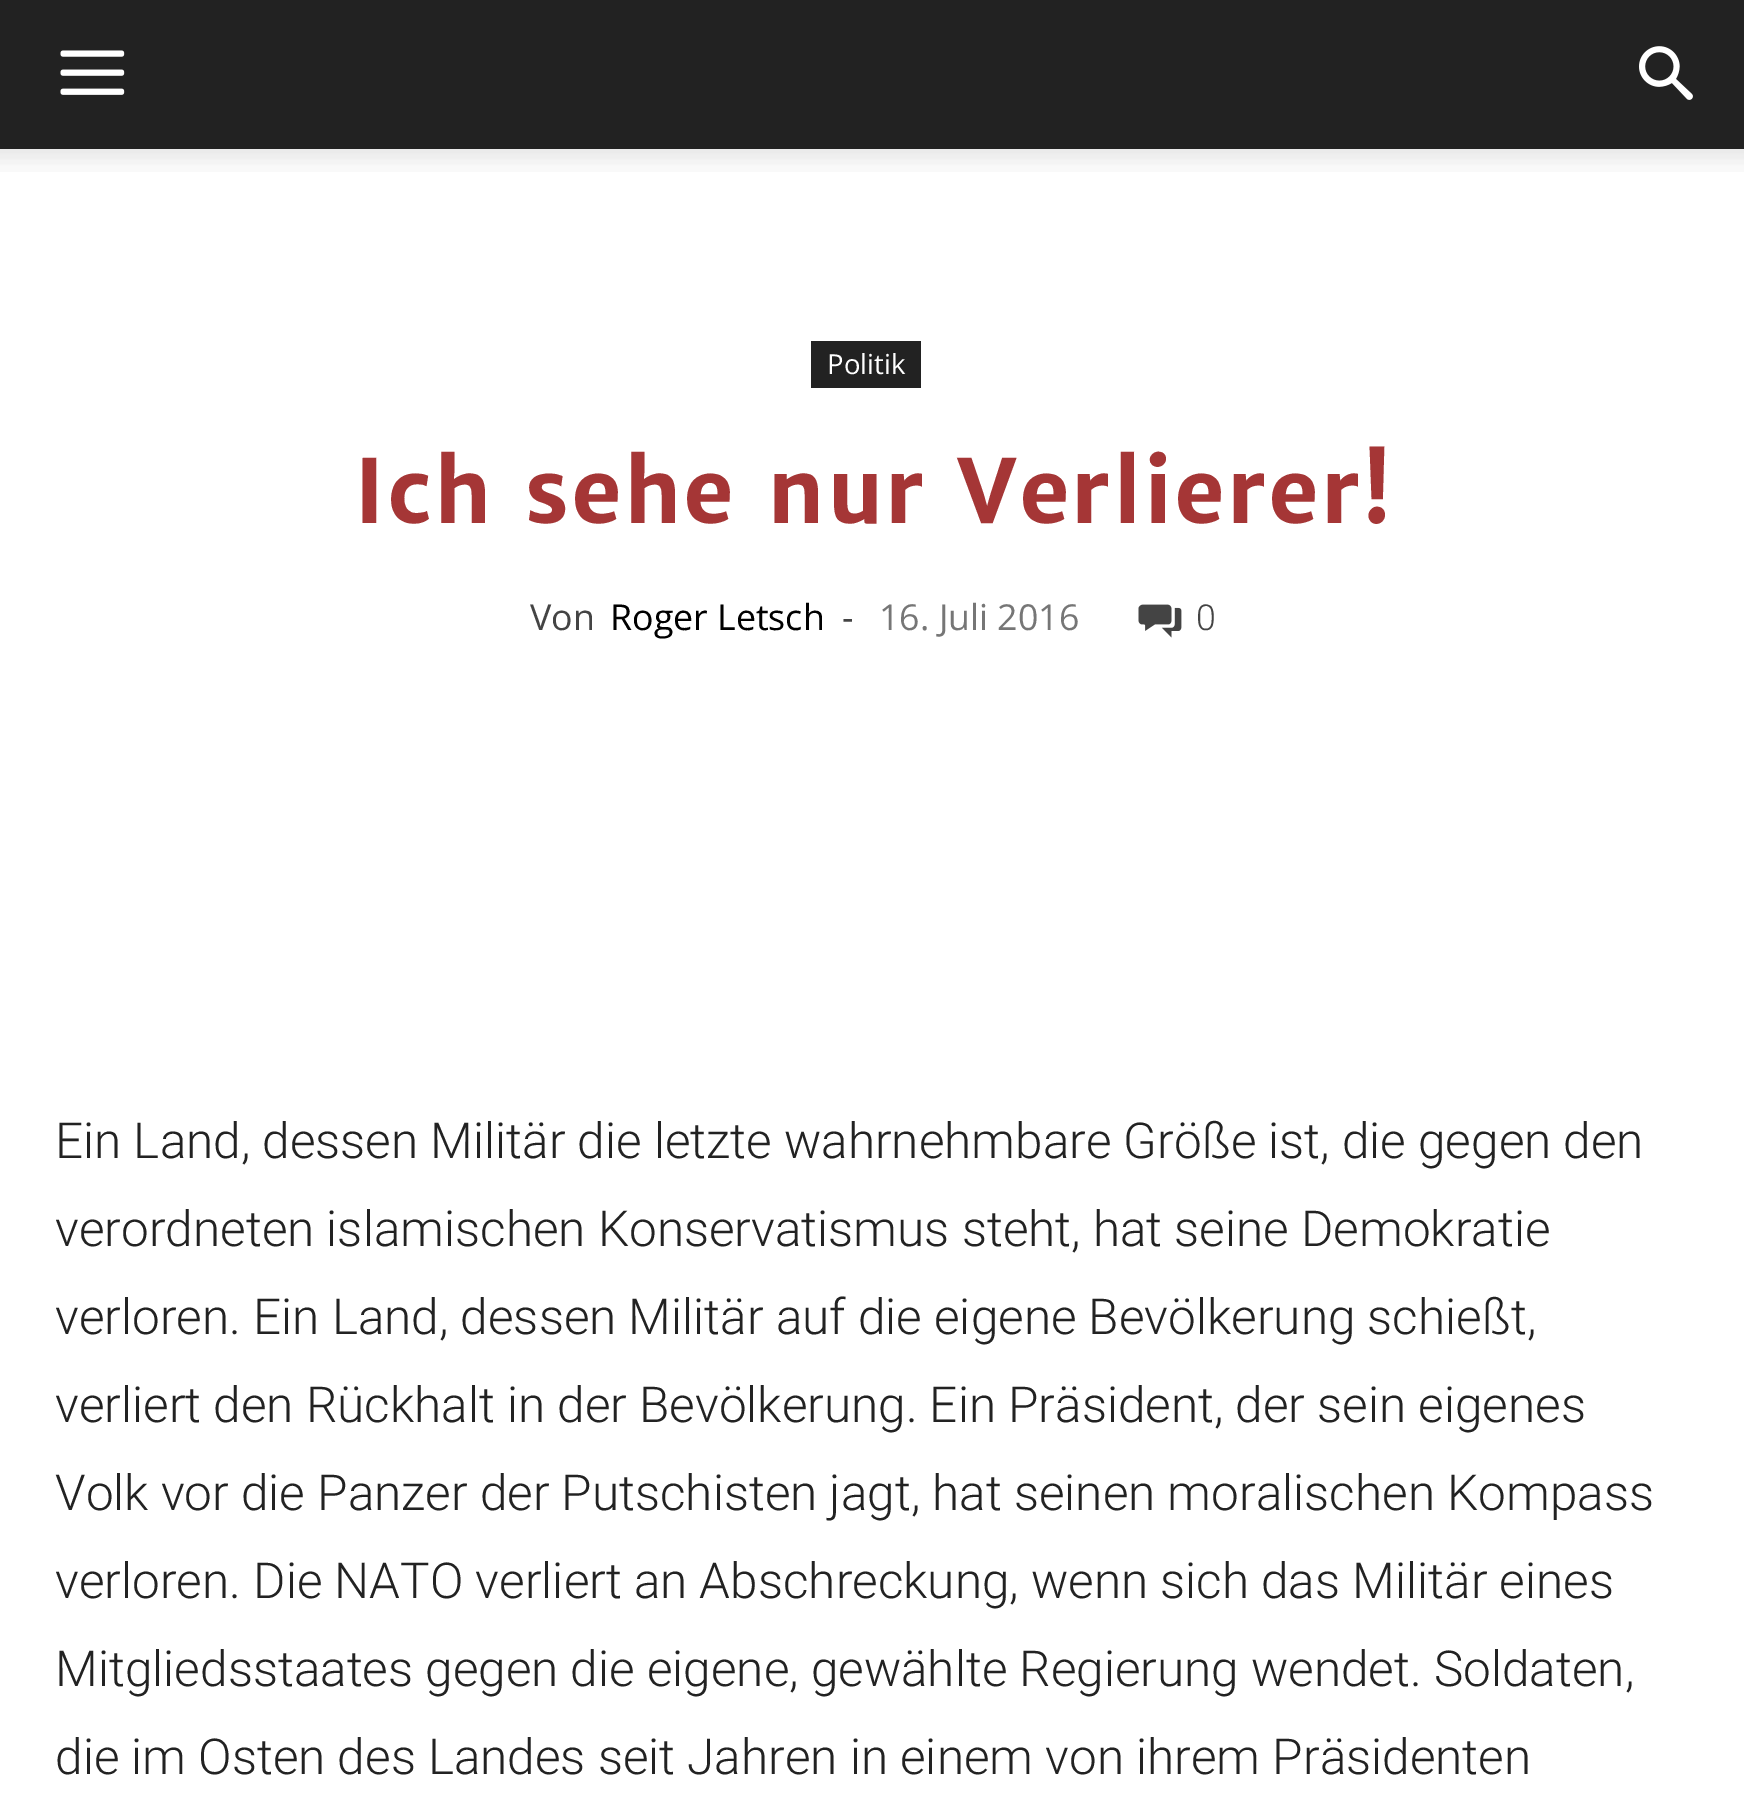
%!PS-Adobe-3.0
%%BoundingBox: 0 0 1744 1815
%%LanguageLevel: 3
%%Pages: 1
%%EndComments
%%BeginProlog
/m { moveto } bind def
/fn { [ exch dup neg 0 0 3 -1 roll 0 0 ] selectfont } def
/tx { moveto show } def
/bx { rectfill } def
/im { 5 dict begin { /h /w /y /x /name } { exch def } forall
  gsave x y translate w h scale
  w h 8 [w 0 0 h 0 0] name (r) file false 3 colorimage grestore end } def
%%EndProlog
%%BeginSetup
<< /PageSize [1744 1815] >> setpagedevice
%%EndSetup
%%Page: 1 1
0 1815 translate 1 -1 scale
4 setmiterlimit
1 setgray
0 0 1744 1815 bx
0.133 setgray
0 0 1744 149 bx
(image0.raw) 60 50 65 45 im
(image1.raw) 1639 46 54 54 im
(image2.raw) 0 149 1744 23 im
811 341 110 47 bx
/OpenSans-Regular 27.5 fn
1 setgray
(Politik) 827 374 tx
/MerriweatherSans-Bold 88 fn
0.647 0.212 0.212 setrgbcolor
354 523 m 1.75 0 (Ich sehe nur Verlierer!) ashow
/OpenSans-Regular 35.75 fn
0.267 setgray
(Von) 530 630 tx
0 setgray
(Roger Letsch) 610 630 tx
0.267 setgray
(-) 842 630 tx
0.463 setgray
(16. Juli 2016) 879 630 tx
(image3.raw) 1138 604 44 34 im
/Roboto-Light 35.75 fn
0.267 setgray
(0) 1196 630 tx
/Roboto-Light 49.5 fn
0.133 setgray
(Ein Land, dessen Militär die letzte wahrnehmbare Größe ist, die gegen den) 55 1158 tx
(verordneten islamischen Konservatismus steht, hat seine Demokratie) 55 1246 tx
(verloren. Ein Land, dessen Militär auf die eigene Bevölkerung schießt,) 55 1334 tx
(verliert den Rückhalt in der Bevölkerung. Ein Präsident, der sein eigenes) 55 1422 tx
(Volk vor die Panzer der Putschisten jagt, hat seinen moralischen Kompass) 55 1510 tx
(verloren. Die NATO verliert an Abschreckung, wenn sich das Militär eines) 55 1598 tx
(Mitgliedsstaates gegen die eigene, gewählte Regierung wendet. Soldaten,) 55 1686 tx
(die im Osten des Landes seit Jahren in einem von ihrem Präsidenten) 55 1774 tx
showpage
%%EOF
